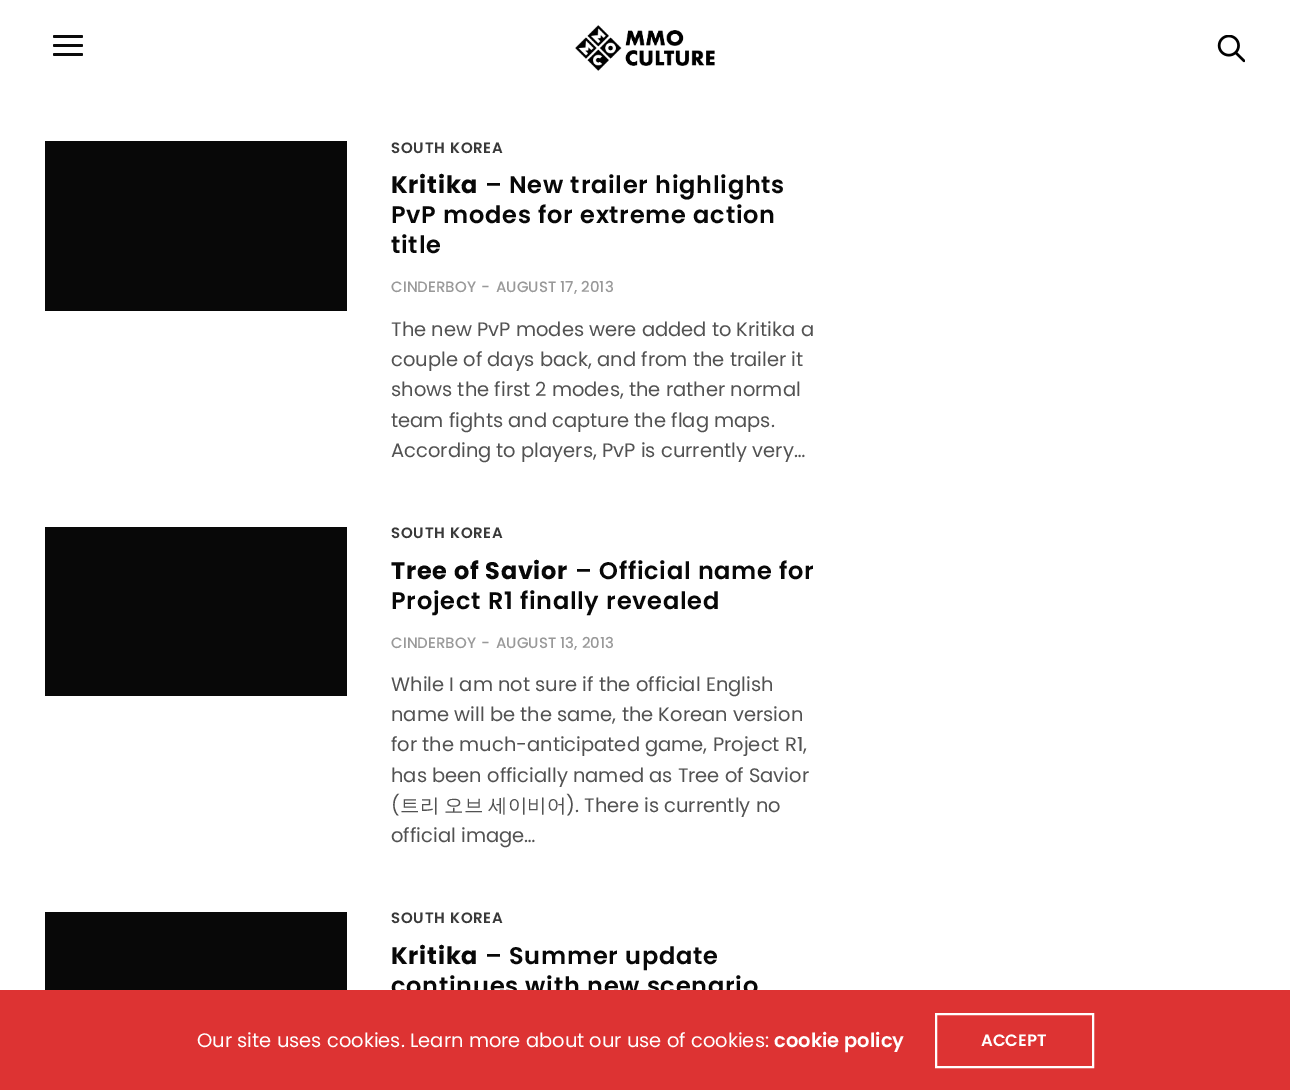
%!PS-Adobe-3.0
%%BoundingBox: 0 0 1290 1090
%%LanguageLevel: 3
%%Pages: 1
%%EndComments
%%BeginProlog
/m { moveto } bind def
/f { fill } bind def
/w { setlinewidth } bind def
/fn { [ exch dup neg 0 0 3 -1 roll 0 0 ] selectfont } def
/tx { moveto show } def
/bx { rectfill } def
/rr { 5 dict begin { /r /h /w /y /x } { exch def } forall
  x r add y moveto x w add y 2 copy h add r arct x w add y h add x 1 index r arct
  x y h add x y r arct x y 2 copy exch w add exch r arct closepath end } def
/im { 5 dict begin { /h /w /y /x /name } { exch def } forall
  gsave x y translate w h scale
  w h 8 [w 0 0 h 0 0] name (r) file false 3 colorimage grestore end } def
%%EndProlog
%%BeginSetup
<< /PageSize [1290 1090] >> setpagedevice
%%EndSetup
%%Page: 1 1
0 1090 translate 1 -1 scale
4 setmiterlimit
1 setgray
0 0 1290 1090 bx
0.039 setgray
53 35 30 3 1.5 rr f
53 44 30 3 1.5 rr f
53 53 30 3 1.5 rr f
(image0.raw) 575 25 140 46 im
(image1.raw) 1217 35 28 28 im
0.031 setgray
45 141 302 170 bx
/Poppins-SemiBold 15 fn
0.224 setgray
391 153 m 0.75 0 (SOUTH KOREA) ashow
/Poppins-Bold 24 fn
0.031 setgray
391 193 m 0.75 0 (Kritika) ashow
/Poppins-SemiBold 24 fn
485 193 m 0.75 0 (– New trailer highlights) ashow
391 223 m 0.75 0 (PvP modes for extreme action) ashow
391 253 m 0.75 0 (title) ashow
/Poppins-Medium 15 fn
0.6 setgray
(CINDERBOY) 391 292 tx
(-) 481 292 tx
(AUGUST 17, 2013) 496 292 tx
/Poppins-Regular 19.5 fn
0.322 setgray
(The new PvP modes were added to Kritika a) 391 336 tx
(couple of days back, and from the trailer it) 391 366 tx
(shows the first 2 modes, the rather normal) 391 396 tx
(team fights and capture the flag maps.) 391 427 tx
(According to players, PvP is currently very…) 391 457 tx
0.031 setgray
45 527 302 169 bx
/Poppins-SemiBold 15 fn
0.224 setgray
391 538 m 0.75 0 (SOUTH KOREA) ashow
/Poppins-Bold 24 fn
0.031 setgray
391 579 m 0.75 0 (Tree of Savior) ashow
/Poppins-SemiBold 24 fn
575 579 m 0.75 0 (– Official name for) ashow
391 609 m 0.75 0 (Project R1 finally revealed) ashow
/Poppins-Medium 15 fn
0.6 setgray
(CINDERBOY) 391 648 tx
(-) 481 648 tx
(AUGUST 13, 2013) 496 648 tx
/Poppins-Regular 19.5 fn
0.322 setgray
(While I am not sure if the official English) 391 691 tx
(name will be the same, the Korean version) 391 721 tx
(for the much-anticipated game, Project R1,) 391 751 tx
(has been officially named as Tree of Savior) 391 782 tx
(\() 391 812 tx
/WenQuanYiZenHei-Medium 19.5 fn
(트리) 400 812 tx
(오브) 444 812 tx
(세이비어) 488 812 tx
/Poppins-Regular 19.5 fn
(\). There is currently no) 566 812 tx
(official image…) 391 842 tx
0.031 setgray
45 912 302 78 bx
/Poppins-SemiBold 15 fn
0.224 setgray
391 923 m 0.75 0 (SOUTH KOREA) ashow
/Poppins-Bold 24 fn
0.031 setgray
391 964 m 0.75 0 (Kritika) ashow
/Poppins-SemiBold 24 fn
485 964 m 0.75 0 (– Summer update) ashow
391 994 m 0.75 0 (continues with new scenario) ashow
0.867 0.2 0.2 setrgbcolor
0 990 1290 100 bx
/Poppins-Regular 19.5 fn
1 setgray
(Our site uses cookies. Learn more about our use of cookies:) 197 1047 tx
/Poppins-SemiBold 19.5 fn
(cookie policy) 774 1047 tx
2 w
936 1014 157 53 rectstroke
/Poppins-SemiBold 16.5 fn
(ACCEPT) 981 1046 tx
showpage
%%EOF
